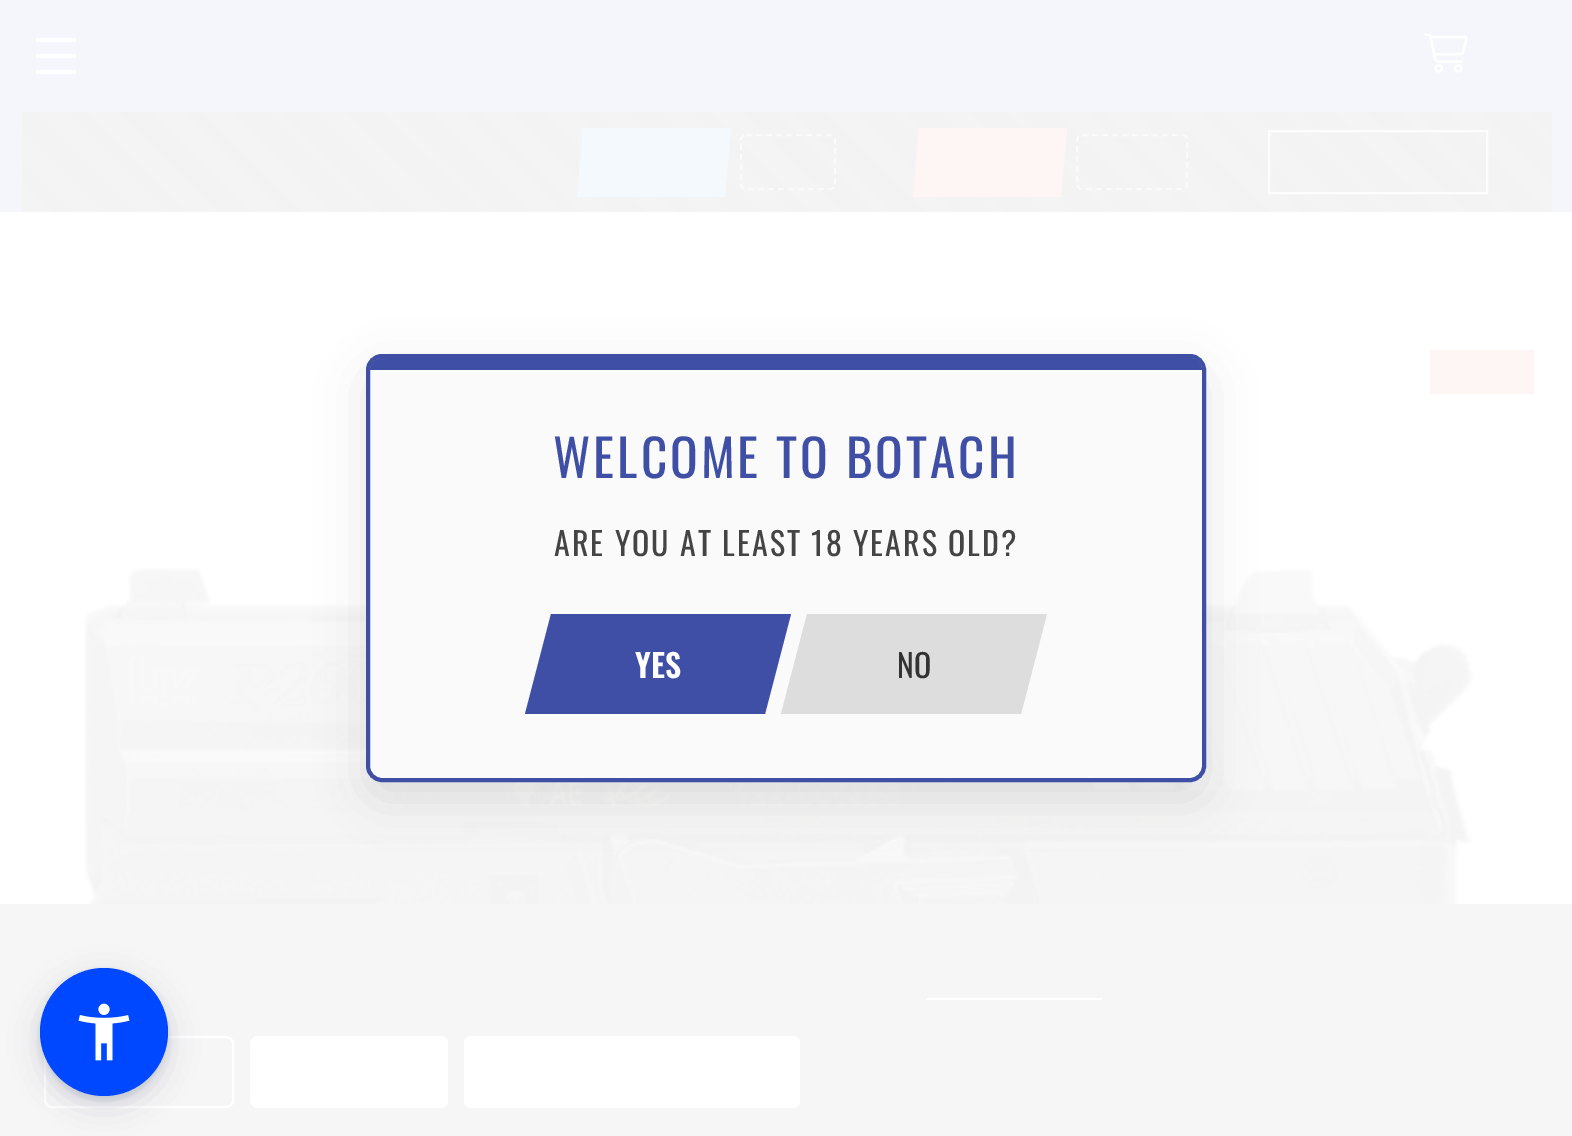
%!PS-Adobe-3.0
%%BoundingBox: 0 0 1572 1136
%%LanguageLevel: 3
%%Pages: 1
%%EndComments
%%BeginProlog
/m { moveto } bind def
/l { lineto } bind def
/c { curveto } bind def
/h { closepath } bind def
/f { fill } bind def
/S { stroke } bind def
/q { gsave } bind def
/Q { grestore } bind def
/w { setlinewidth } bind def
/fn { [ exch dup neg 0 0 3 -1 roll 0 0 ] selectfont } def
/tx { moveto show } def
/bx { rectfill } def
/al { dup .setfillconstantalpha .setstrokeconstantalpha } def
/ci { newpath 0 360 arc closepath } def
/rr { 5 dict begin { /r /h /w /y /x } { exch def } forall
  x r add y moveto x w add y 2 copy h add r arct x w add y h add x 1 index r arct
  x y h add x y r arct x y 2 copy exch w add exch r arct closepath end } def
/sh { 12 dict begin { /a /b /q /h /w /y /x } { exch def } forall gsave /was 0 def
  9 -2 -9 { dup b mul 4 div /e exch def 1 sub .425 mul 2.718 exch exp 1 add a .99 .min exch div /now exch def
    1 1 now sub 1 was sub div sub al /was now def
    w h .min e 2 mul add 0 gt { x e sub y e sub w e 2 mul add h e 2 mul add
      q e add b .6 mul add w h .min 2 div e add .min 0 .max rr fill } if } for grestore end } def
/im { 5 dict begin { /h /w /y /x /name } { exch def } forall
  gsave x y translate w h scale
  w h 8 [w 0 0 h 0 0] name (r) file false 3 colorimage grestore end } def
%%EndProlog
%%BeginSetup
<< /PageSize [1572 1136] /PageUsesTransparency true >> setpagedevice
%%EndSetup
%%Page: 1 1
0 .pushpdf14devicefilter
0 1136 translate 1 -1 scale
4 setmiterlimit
1 setgray
0 0 1572 1136 bx
0.961 0.965 0.984 setrgbcolor
0 0 1572 212 bx
1 setgray
36 54 40 4 bx
36 38 40 4 bx
36 70 40 4 bx
(image0.raw) 1424 33 44 40 im
q 22 112 m 1552 112 l 1552 212 l 22 212 l h clip newpath
<< /ShadingType 2 /ColorSpace /DeviceRGB /Coords [380 570 1200 -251] /Extend [true true] /Function << /FunctionType 3 /Domain [0 1] /Functions [<< /FunctionType 2 /Domain [0 1] /C0 [0.957 0.957 0.957] /C1 [0.957 0.957 0.957] /N 1 >> << /FunctionType 2 /Domain [0 1] /C0 [0.953 0.953 0.953] /C1 [0.953 0.953 0.953] /N 1 >> << /FunctionType 2 /Domain [0 1] /C0 [0.957 0.957 0.957] /C1 [0.957 0.957 0.957] /N 1 >> << /FunctionType 2 /Domain [0 1] /C0 [0.953 0.953 0.953] /C1 [0.953 0.953 0.953] /N 1 >> << /FunctionType 2 /Domain [0 1] /C0 [0.957 0.957 0.957] /C1 [0.957 0.957 0.957] /N 1 >> << /FunctionType 2 /Domain [0 1] /C0 [0.953 0.953 0.953] /C1 [0.953 0.953 0.953] /N 1 >> << /FunctionType 2 /Domain [0 1] /C0 [0.957 0.957 0.957] /C1 [0.957 0.957 0.957] /N 1 >> << /FunctionType 2 /Domain [0 1] /C0 [0.953 0.953 0.953] /C1 [0.953 0.953 0.953] /N 1 >> << /FunctionType 2 /Domain [0 1] /C0 [0.957 0.957 0.957] /C1 [0.957 0.957 0.957] /N 1 >> << /FunctionType 2 /Domain [0 1] /C0 [0.953 0.953 0.953] /C1 [0.953 0.953 0.953] /N 1 >> << /FunctionType 2 /Domain [0 1] /C0 [0.957 0.957 0.957] /C1 [0.957 0.957 0.957] /N 1 >> << /FunctionType 2 /Domain [0 1] /C0 [0.953 0.953 0.953] /C1 [0.953 0.953 0.953] /N 1 >> << /FunctionType 2 /Domain [0 1] /C0 [0.957 0.957 0.957] /C1 [0.957 0.957 0.957] /N 1 >> << /FunctionType 2 /Domain [0 1] /C0 [0.953 0.953 0.953] /C1 [0.953 0.953 0.953] /N 1 >> << /FunctionType 2 /Domain [0 1] /C0 [0.957 0.957 0.957] /C1 [0.957 0.957 0.957] /N 1 >> << /FunctionType 2 /Domain [0 1] /C0 [0.953 0.953 0.953] /C1 [0.953 0.953 0.953] /N 1 >> << /FunctionType 2 /Domain [0 1] /C0 [0.957 0.957 0.957] /C1 [0.957 0.957 0.957] /N 1 >> << /FunctionType 2 /Domain [0 1] /C0 [0.953 0.953 0.953] /C1 [0.953 0.953 0.953] /N 1 >> << /FunctionType 2 /Domain [0 1] /C0 [0.957 0.957 0.957] /C1 [0.957 0.957 0.957] /N 1 >> << /FunctionType 2 /Domain [0 1] /C0 [0.953 0.953 0.953] /C1 [0.953 0.953 0.953] /N 1 >> << /FunctionType 2 /Domain [0 1] /C0 [0.957 0.957 0.957] /C1 [0.957 0.957 0.957] /N 1 >> << /FunctionType 2 /Domain [0 1] /C0 [0.953 0.953 0.953] /C1 [0.953 0.953 0.953] /N 1 >> << /FunctionType 2 /Domain [0 1] /C0 [0.957 0.957 0.957] /C1 [0.957 0.957 0.957] /N 1 >> << /FunctionType 2 /Domain [0 1] /C0 [0.953 0.953 0.953] /C1 [0.953 0.953 0.953] /N 1 >> << /FunctionType 2 /Domain [0 1] /C0 [0.957 0.957 0.957] /C1 [0.957 0.957 0.957] /N 1 >> << /FunctionType 2 /Domain [0 1] /C0 [0.953 0.953 0.953] /C1 [0.953 0.953 0.953] /N 1 >> << /FunctionType 2 /Domain [0 1] /C0 [0.957 0.957 0.957] /C1 [0.957 0.957 0.957] /N 1 >> << /FunctionType 2 /Domain [0 1] /C0 [0.953 0.953 0.953] /C1 [0.953 0.953 0.953] /N 1 >> << /FunctionType 2 /Domain [0 1] /C0 [0.957 0.957 0.957] /C1 [0.957 0.957 0.957] /N 1 >> << /FunctionType 2 /Domain [0 1] /C0 [0.953 0.953 0.953] /C1 [0.953 0.953 0.953] /N 1 >> << /FunctionType 2 /Domain [0 1] /C0 [0.957 0.957 0.957] /C1 [0.957 0.957 0.957] /N 1 >> << /FunctionType 2 /Domain [0 1] /C0 [0.953 0.953 0.953] /C1 [0.953 0.953 0.953] /N 1 >> << /FunctionType 2 /Domain [0 1] /C0 [0.957 0.957 0.957] /C1 [0.957 0.957 0.957] /N 1 >> << /FunctionType 2 /Domain [0 1] /C0 [0.953 0.953 0.953] /C1 [0.953 0.953 0.953] /N 1 >> << /FunctionType 2 /Domain [0 1] /C0 [0.957 0.957 0.957] /C1 [0.957 0.957 0.957] /N 1 >> << /FunctionType 2 /Domain [0 1] /C0 [0.953 0.953 0.953] /C1 [0.953 0.953 0.953] /N 1 >> << /FunctionType 2 /Domain [0 1] /C0 [0.957 0.957 0.957] /C1 [0.957 0.957 0.957] /N 1 >> << /FunctionType 2 /Domain [0 1] /C0 [0.953 0.953 0.953] /C1 [0.953 0.953 0.953] /N 1 >> << /FunctionType 2 /Domain [0 1] /C0 [0.957 0.957 0.957] /C1 [0.957 0.957 0.957] /N 1 >> << /FunctionType 2 /Domain [0 1] /C0 [0.953 0.953 0.953] /C1 [0.953 0.953 0.953] /N 1 >> << /FunctionType 2 /Domain [0 1] /C0 [0.957 0.957 0.957] /C1 [0.957 0.957 0.957] /N 1 >> << /FunctionType 2 /Domain [0 1] /C0 [0.953 0.953 0.953] /C1 [0.953 0.953 0.953] /N 1 >> << /FunctionType 2 /Domain [0 1] /C0 [0.957 0.957 0.957] /C1 [0.957 0.957 0.957] /N 1 >> << /FunctionType 2 /Domain [0 1] /C0 [0.953 0.953 0.953] /C1 [0.953 0.953 0.953] /N 1 >> << /FunctionType 2 /Domain [0 1] /C0 [0.957 0.957 0.957] /C1 [0.957 0.957 0.957] /N 1 >> << /FunctionType 2 /Domain [0 1] /C0 [0.953 0.953 0.953] /C1 [0.953 0.953 0.953] /N 1 >> << /FunctionType 2 /Domain [0 1] /C0 [0.957 0.957 0.957] /C1 [0.957 0.957 0.957] /N 1 >> << /FunctionType 2 /Domain [0 1] /C0 [0.953 0.953 0.953] /C1 [0.953 0.953 0.953] /N 1 >> << /FunctionType 2 /Domain [0 1] /C0 [0.957 0.957 0.957] /C1 [0.957 0.957 0.957] /N 1 >> << /FunctionType 2 /Domain [0 1] /C0 [0.953 0.953 0.953] /C1 [0.953 0.953 0.953] /N 1 >> << /FunctionType 2 /Domain [0 1] /C0 [0.957 0.957 0.957] /C1 [0.957 0.957 0.957] /N 1 >> << /FunctionType 2 /Domain [0 1] /C0 [0.953 0.953 0.953] /C1 [0.953 0.953 0.953] /N 1 >> << /FunctionType 2 /Domain [0 1] /C0 [0.957 0.957 0.957] /C1 [0.957 0.957 0.957] /N 1 >> << /FunctionType 2 /Domain [0 1] /C0 [0.953 0.953 0.953] /C1 [0.953 0.953 0.953] /N 1 >> << /FunctionType 2 /Domain [0 1] /C0 [0.957 0.957 0.957] /C1 [0.957 0.957 0.957] /N 1 >> << /FunctionType 2 /Domain [0 1] /C0 [0.953 0.953 0.953] /C1 [0.953 0.953 0.953] /N 1 >> << /FunctionType 2 /Domain [0 1] /C0 [0.957 0.957 0.957] /C1 [0.957 0.957 0.957] /N 1 >> << /FunctionType 2 /Domain [0 1] /C0 [0.953 0.953 0.953] /C1 [0.953 0.953 0.953] /N 1 >>] /Bounds [0.02 0.03 0.05 0.07 0.09 0.1 0.12 0.14 0.16 0.17 0.19 0.21 0.22 0.24 0.26 0.28 0.29 0.31 0.33 0.34 0.36 0.38 0.4 0.41 0.43 0.45 0.47 0.48 0.5 0.52 0.53 0.55 0.57 0.59 0.6 0.62 0.64 0.66 0.67 0.69 0.71 0.72 0.74 0.76 0.78 0.79 0.81 0.83 0.84 0.86 0.88 0.9 0.91 0.93 0.95 0.97 0.98] /Encode [0 1 0 1 0 1 0 1 0 1 0 1 0 1 0 1 0 1 0 1 0 1 0 1 0 1 0 1 0 1 0 1 0 1 0 1 0 1 0 1 0 1 0 1 0 1 0 1 0 1 0 1 0 1 0 1 0 1 0 1 0 1 0 1 0 1 0 1 0 1 0 1 0 1 0 1 0 1 0 1 0 1 0 1 0 1 0 1 0 1 0 1 0 1 0 1 0 1 0 1 0 1 0 1 0 1 0 1 0 1 0 1 0 1 0 1] >> >> shfill Q
0.957 0.976 0.996 setrgbcolor
583 128 m 731 128 l 725 197 l 577 197 l h f
0.98 setgray
2 w
[6 4] 0 setdash
746 135 m 830 135 l 833 135 835 137 835 140 c 835 184 l 835 187 833 189 830 189 c 746 189 l 743 189 741 187 741 184 c 741 140 l 741 137 743 135 746 135 c h S
0.996 0.961 0.961 setrgbcolor
919 128 m 1067 128 l 1061 197 l 913 197 l h f
0.98 setgray
1082 135 m 1182 135 l 1185 135 1187 137 1187 140 c 1187 184 l 1187 187 1185 189 1182 189 c 1082 189 l 1079 189 1077 187 1077 184 c 1077 140 l 1077 137 1079 135 1082 135 c h S
0.992 setgray
[] 0 setdash
1269 131 218 62 rectstroke
0.996 0.965 0.961 setrgbcolor
1430 350 104 44 bx
(image1.raw) 84 566 1392 338 im
0 setgray
366 370 840 428 16 24 0.1 sh
0.98 setgray
368 356 836 424 14 rr q f Q
0.251 0.31 0.651 setrgbcolor
4 w
S
382 358 m 1190 358 l 1196.5 358 1202 363.5 1202 370 c 370 370 l 370 363.5 375.5 358 382 358 c h f
/Oswald-Regular 51.25 fn
553 478 m 3 0 (WELCOME TO BOTACH) ashow
/Oswald-Regular 32 fn
0.267 setgray
554 556 m 2 0 (ARE YOU AT LEAST 18 YEARS OLD?) ashow
0.251 0.31 0.651 setrgbcolor
551 614 m 791 614 l 765 714 l 525 714 l h f
/Oswald-SemiBold 32 fn
1 setgray
(YES) 635 678 tx
0.867 setgray
807 614 m 1047 614 l 1021 714 l 781 714 l h f
/Oswald-Regular 32 fn
0.2 setgray
(NO) 897 678 tx
0.965 setgray
0 904 1572 232 bx
1 setgray
926 998 176 2 bx
2 w
45 1037 188 70 7 rr S
250 1036 198 72 8 rr f
464 1036 336 72 8 rr f
0.365 0.392 0.58 setrgbcolor
40 972 128 128 64 4 0.2 sh
0.145 0.173 0.38 setrgbcolor
40 978 128 128 64 15 0.15 sh
0 0.282 1 setrgbcolor
104 1032 64 ci f
(image2.raw) 78 1003 52 58 im
.poppdf14devicefilter showpage
%%EOF
